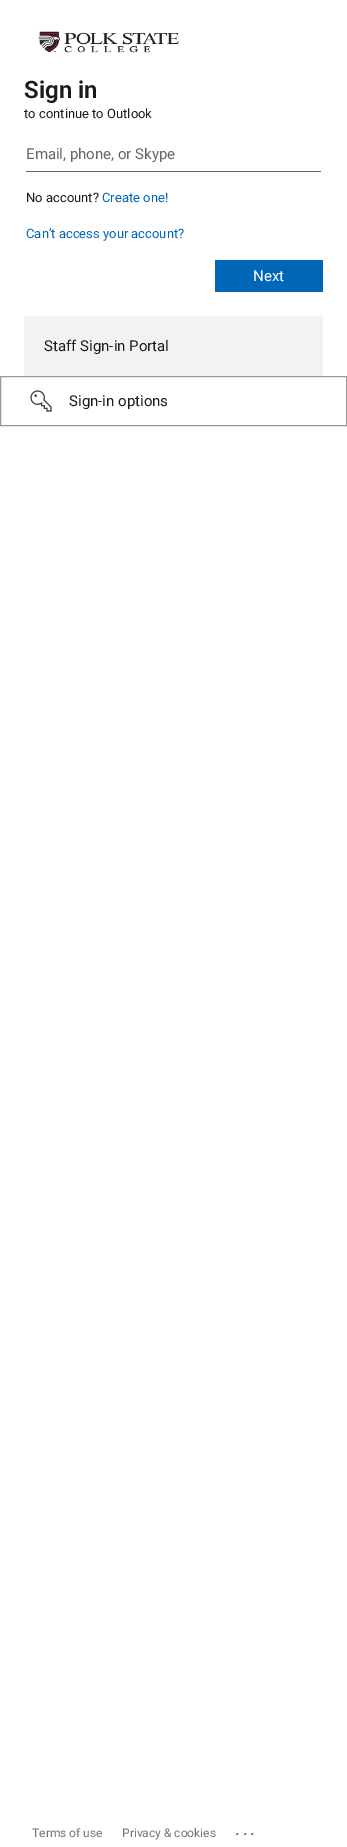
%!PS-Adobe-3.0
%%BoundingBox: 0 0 347 1847
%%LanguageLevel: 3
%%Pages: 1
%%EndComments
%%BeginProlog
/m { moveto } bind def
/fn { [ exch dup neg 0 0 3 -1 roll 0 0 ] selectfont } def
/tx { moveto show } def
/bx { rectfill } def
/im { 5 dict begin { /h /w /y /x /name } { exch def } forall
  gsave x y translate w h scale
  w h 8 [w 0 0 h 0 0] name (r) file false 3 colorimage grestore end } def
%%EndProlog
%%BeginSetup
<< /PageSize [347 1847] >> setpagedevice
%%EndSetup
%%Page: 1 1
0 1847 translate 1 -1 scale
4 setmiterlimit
1 setgray
0 0 347 1847 bx
(image0.raw) 38 31 141 22 im
/Roboto-SemiBold 24 fn
0.106 setgray
(Sign in) 24 98 tx
/Roboto-Regular 13 fn
(to continue to Outlook) 24 118 tx
0.4 setgray
26 171 295 1 bx
/Roboto-Regular 15 fn
(Email, phone, or Skype) 26 159 tx
/Roboto-Regular 13 fn
0.106 setgray
(No account?) 26 202 tx
0 0.404 0.722 setrgbcolor
(Create one!) 102 202 tx
(Can’t access your account?) 26 238 tx
215 260 108 32 bx
/Roboto-Regular 15 fn
1 setgray
(Next) 253 281 tx
0.949 setgray
24 316 299 60 bx
0.106 setgray
(Staff Sign-in Portal) 44 351 tx
0.6 setgray
0.5 376.5 346 49 rectstroke
(image1.raw) 30 390 22 22 im
0.106 setgray
(Sign-in options) 69 406 tx
/Roboto-Regular 12 fn
0.455 setgray
(Terms of use) 32 1837 tx
(Privacy & cookies) 122 1837 tx
/Roboto-SemiBold 16 fn
235 1835 m 3 0 (...) ashow
showpage
%%EOF
